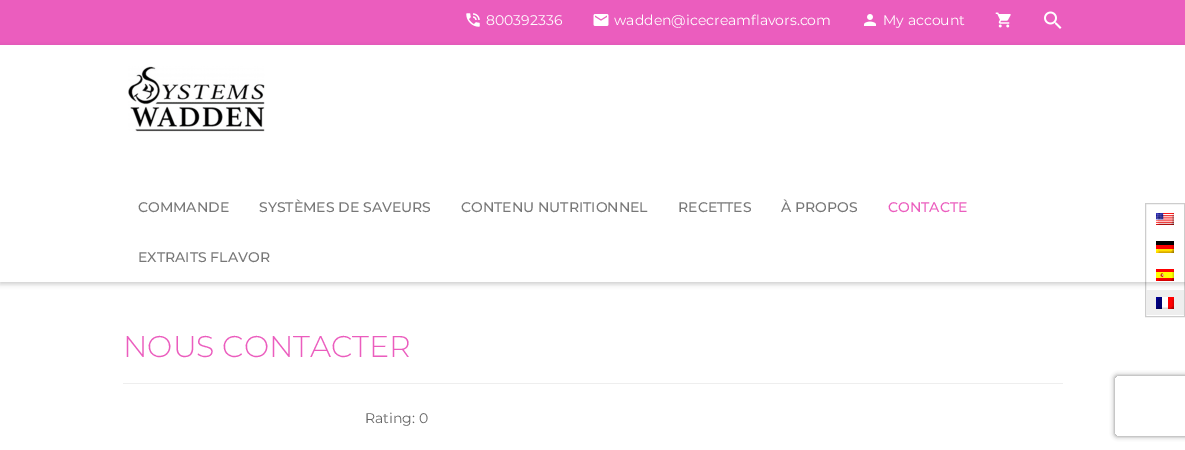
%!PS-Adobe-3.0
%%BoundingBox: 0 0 1185 450
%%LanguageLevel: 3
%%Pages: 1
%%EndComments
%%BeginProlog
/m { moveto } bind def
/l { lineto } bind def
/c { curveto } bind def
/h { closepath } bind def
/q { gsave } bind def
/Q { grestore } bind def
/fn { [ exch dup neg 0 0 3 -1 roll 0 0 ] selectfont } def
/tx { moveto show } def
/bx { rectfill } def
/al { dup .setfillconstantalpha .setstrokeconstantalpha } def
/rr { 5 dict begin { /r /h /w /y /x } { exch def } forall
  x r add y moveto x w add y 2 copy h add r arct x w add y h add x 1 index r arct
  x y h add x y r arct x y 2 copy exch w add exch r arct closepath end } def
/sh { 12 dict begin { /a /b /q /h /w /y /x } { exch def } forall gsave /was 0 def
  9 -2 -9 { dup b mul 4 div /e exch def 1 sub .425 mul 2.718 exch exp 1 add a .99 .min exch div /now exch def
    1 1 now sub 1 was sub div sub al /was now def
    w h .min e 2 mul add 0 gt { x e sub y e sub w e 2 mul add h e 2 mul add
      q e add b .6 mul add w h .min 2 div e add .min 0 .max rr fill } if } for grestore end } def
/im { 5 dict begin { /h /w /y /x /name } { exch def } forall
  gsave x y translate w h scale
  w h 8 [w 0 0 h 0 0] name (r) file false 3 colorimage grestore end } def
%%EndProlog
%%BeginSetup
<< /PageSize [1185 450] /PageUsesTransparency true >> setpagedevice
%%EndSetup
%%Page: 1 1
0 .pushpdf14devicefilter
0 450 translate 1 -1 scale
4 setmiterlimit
1 setgray
0 0 1185 450 bx
0.922 0.365 0.745 setrgbcolor
0 0 1185 45 bx
(image0.raw) 466 13 14 14 im
/Montserrat-Regular 14 fn
1 setgray
(800392336) 486 25 tx
(image1.raw) 593 14 16 12 im
(wadden@icecreamflavors.com) 614 25 tx
(image2.raw) 864 14 12 12 im
(My account) 883 25 tx
(image3.raw) 995 12 16 16 im
(image4.raw) 1044 11 18 18 im
0.804 setgray
1145.5 203.5 39 113 rectstroke
(image6.raw) 1156 213 18 12 im
(image7.raw) 1156 241 18 12 im
(image8.raw) 1156 269 18 12 im
0.933 setgray
1146 290 38 25 bx
q
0 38 m 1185 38 l 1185 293 l 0 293 l h 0 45 m 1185 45 l 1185 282 l 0 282 l h eoclip newpath
0 setgray
0 47 1185 237 0 2.5 0.2 sh
Q
(image5.raw) 128 66 137 66 im
/Montserrat-Medium 14 fn
0.467 setgray
(COMMANDE) 138 212 tx
(SYSTÈMES DE SAVEURS) 259 212 tx
(CONTENU NUTRITIONNEL) 461 212 tx
(RECETTES) 678 212 tx
(À PROPOS) 781 212 tx
0.922 0.365 0.745 setrgbcolor
(CONTACTE) 888 212 tx
0.467 setgray
(EXTRAITS FLAVOR) 138 262 tx
(image9.raw) 1156 297 18 12 im
/Montserrat-Light 30 fn
0.922 0.365 0.745 setrgbcolor
(NOUS CONTACTER) 123 357 tx
0.933 setgray
123 383 940 1 bx
/Montserrat-Regular 14 fn
0.4 setgray
(Rating: 0) 365 423 tx
q
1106 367 m 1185 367 l 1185 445 l 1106 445 l h 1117 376 m 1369 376 l 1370 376 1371 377 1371 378 c 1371 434 l 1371 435 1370 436 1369 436 c 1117 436 l 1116 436 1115 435 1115 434 c 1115 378 l 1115 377 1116 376 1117 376 c h eoclip newpath
0.502 setgray
1115 376 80 60 2 2.5 1 sh
Q
.poppdf14devicefilter showpage
%%EOF
